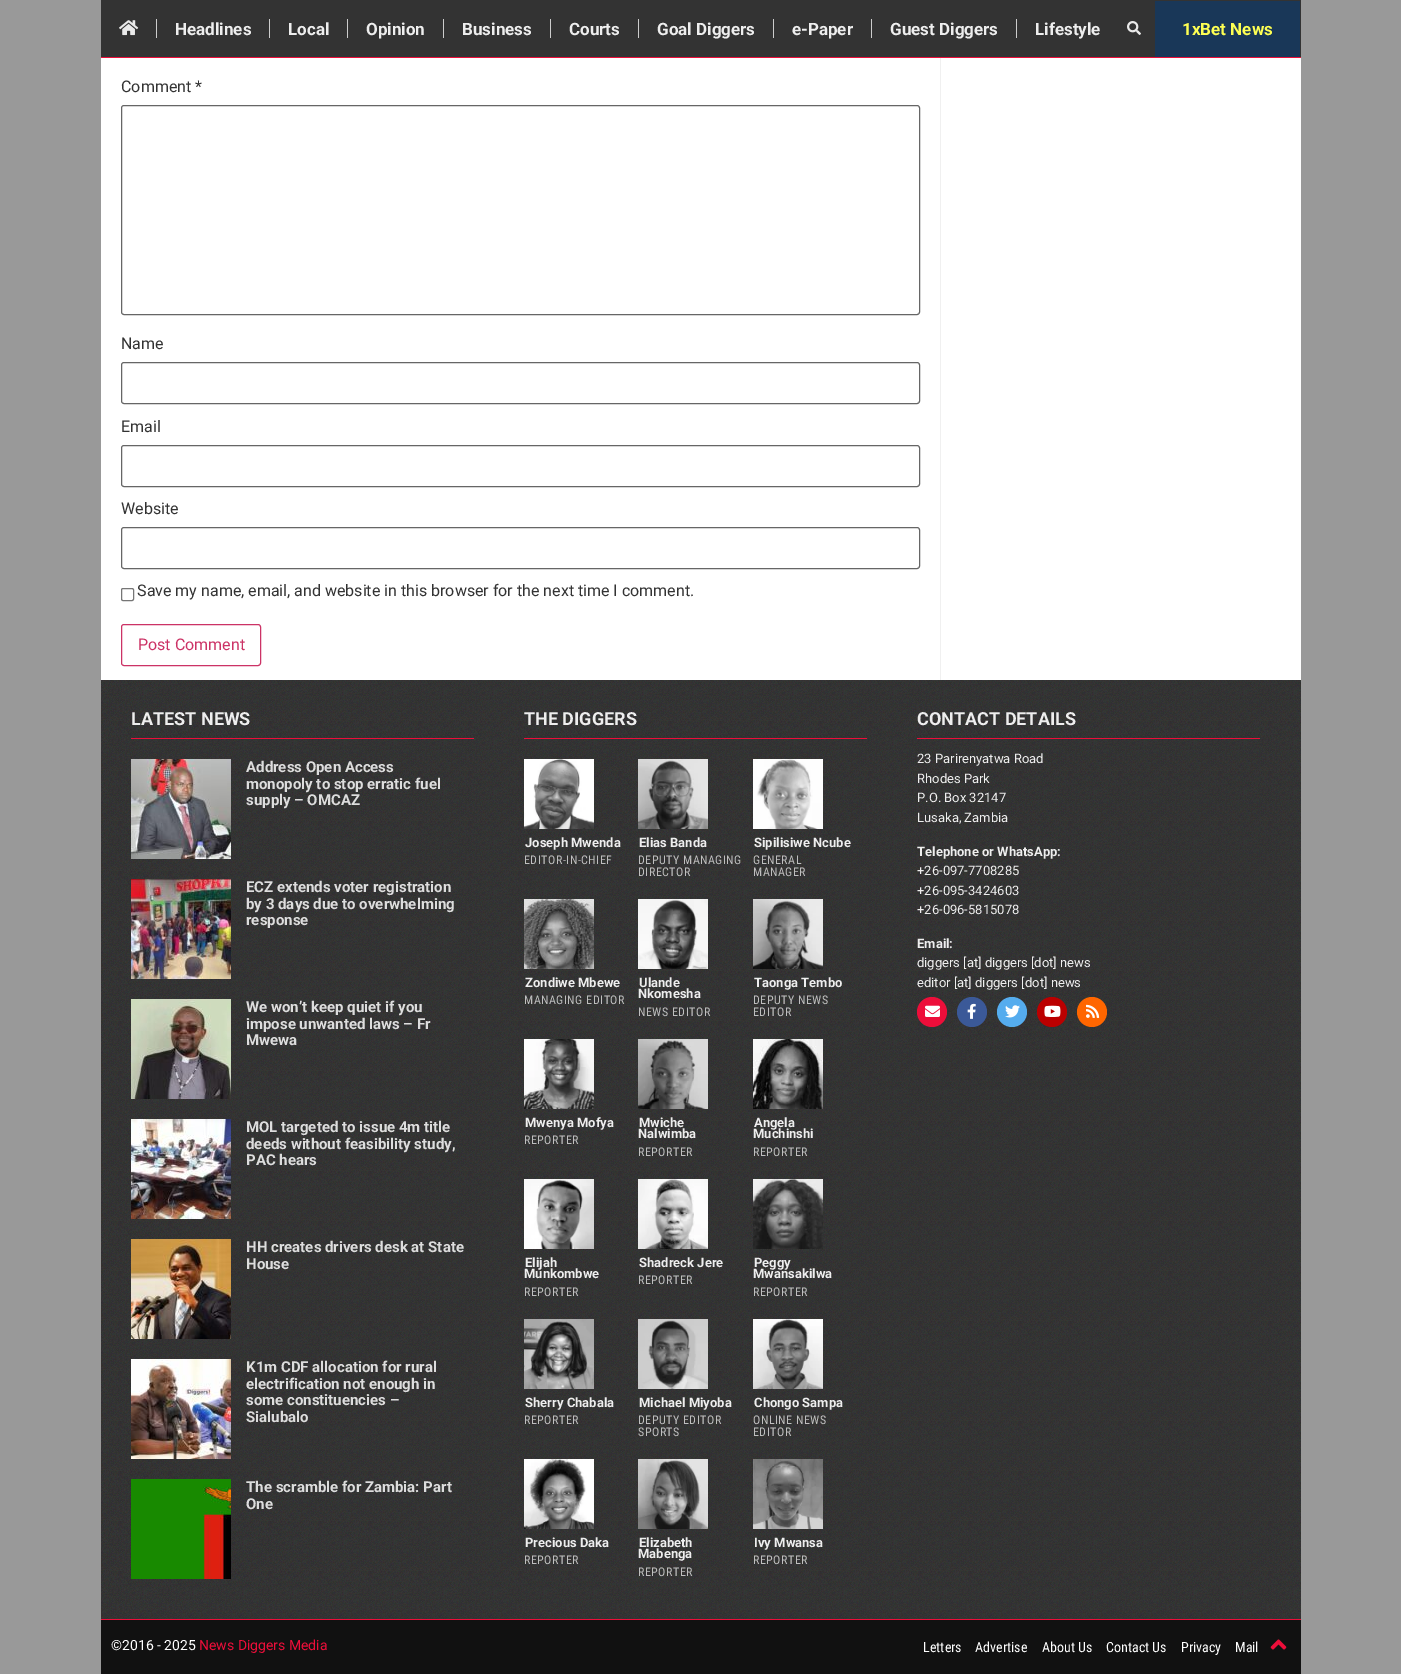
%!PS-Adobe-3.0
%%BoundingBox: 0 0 1401 1674
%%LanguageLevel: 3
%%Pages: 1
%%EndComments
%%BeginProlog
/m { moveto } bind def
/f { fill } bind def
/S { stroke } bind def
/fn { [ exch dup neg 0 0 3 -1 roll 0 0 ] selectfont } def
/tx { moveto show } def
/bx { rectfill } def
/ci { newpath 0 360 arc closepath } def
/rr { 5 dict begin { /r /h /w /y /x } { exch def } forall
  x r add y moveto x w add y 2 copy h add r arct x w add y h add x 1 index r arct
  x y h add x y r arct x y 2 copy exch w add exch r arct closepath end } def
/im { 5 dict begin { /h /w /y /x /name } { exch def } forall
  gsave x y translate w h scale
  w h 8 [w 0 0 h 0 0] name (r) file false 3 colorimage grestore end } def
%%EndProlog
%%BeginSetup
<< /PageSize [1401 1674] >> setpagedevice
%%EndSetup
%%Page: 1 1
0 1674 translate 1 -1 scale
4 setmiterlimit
0.6 setgray
0 0 1401 1674 bx
0.2 setgray
101 0 1200 57 bx
0.929 0.055 0.227 setrgbcolor
101 57 1200 1 bx
(image0.raw) 119 20 20 16 im
0.8 setgray
156 19 1 19 bx
/Roboto-Bold 17 fn
0.933 setgray
(Headlines) 175 35 tx
0.8 setgray
269 19 1 19 bx
0.933 setgray
(Local) 288 35 tx
0.8 setgray
347 19 1 19 bx
0.933 setgray
(Opinion) 366 35 tx
0.8 setgray
443 19 1 19 bx
0.933 setgray
(Business) 462 35 tx
0.8 setgray
550 19 1 19 bx
0.933 setgray
(Courts) 569 35 tx
0.8 setgray
638 19 1 19 bx
0.933 setgray
(Goal Diggers) 657 35 tx
0.8 setgray
773 19 1 19 bx
0.933 setgray
(e-Paper) 792 35 tx
0.8 setgray
871 19 1 19 bx
0.933 setgray
(Guest Diggers) 890 35 tx
0.8 setgray
1016 19 1 19 bx
0.933 setgray
(Lifestyle) 1035 35 tx
(image1.raw) 1127 21 14 14 im
0.098 0.216 0.345 setrgbcolor
1155 1 145 56 bx
0.996 1 0.325 setrgbcolor
(1xBet News) 1182 35 tx
1 setgray
101 58 839 622 bx
0.941 setgray
940 58 1 622 bx
/Roboto-Regular 16 fn
0.2 setgray
(Comment *) 121 92 tx
0.4 setgray
121.5 105.5 798 209 2.5 rr S
0.2 setgray
(Name) 121 349 tx
0.4 setgray
121.5 362.5 798 41 2.5 rr S
0.2 setgray
(Email) 121 432 tx
0.4 setgray
121.5 445.5 798 41 2.5 rr S
0.2 setgray
(Website) 121 514 tx
0.4 setgray
121.5 527.5 798 41 2.5 rr S
0.463 setgray
121.5 588.5 12 12 1.5 rr S
0.2 setgray
(Save my name, email, and website in this browser for the next time I comment.) 137 596 tx
0.8 0.2 0.4 setrgbcolor
121.5 624.5 139 41 2.5 rr S
(Post Comment) 138 650 tx
1 setgray
941 58 360 622 bx
(image2.raw) 101 680 1200 939 im
0.929 0.055 0.227 setrgbcolor
131 738 343 1 bx
/Roboto-Bold 18 fn
0.933 setgray
(LATEST NEWS) 131 725 tx
(image3.raw) 131 759 100 100 im
/Roboto-Bold 15 fn
0.867 setgray
(Address Open Access) 246 772 tx
(monopoly to stop erratic fuel) 246 789 tx
(supply – OMCAZ) 246 805 tx
(image4.raw) 131 879 100 100 im
(ECZ extends voter registration) 246 892 tx
(by 3 days due to overwhelming) 246 909 tx
(response) 246 925 tx
(image5.raw) 131 999 100 100 im
(We won’t keep quiet if you) 246 1012 tx
(impose unwanted laws – Fr) 246 1029 tx
(Mwewa) 246 1045 tx
(image6.raw) 131 1119 100 100 im
(MOL targeted to issue 4m title) 246 1132 tx
(deeds without feasibility study,) 246 1149 tx
(PAC hears) 246 1165 tx
(image7.raw) 131 1239 100 100 im
(HH creates drivers desk at State) 246 1252 tx
(House) 246 1269 tx
(image8.raw) 131 1359 100 100 im
(K1m CDF allocation for rural) 246 1372 tx
(electrification not enough in) 246 1389 tx
(some constituencies –) 246 1405 tx
(Sialubalo) 246 1422 tx
(image9.raw) 131 1479 100 100 im
(The scramble for Zambia: Part) 246 1492 tx
(One) 246 1509 tx
0.929 0.055 0.227 setrgbcolor
524 738 343 1 bx
/Roboto-Bold 18 fn
0.933 setgray
(THE DIGGERS) 524 725 tx
(image10.raw) 524 759 70 70 im
/Roboto-Bold 13 fn
(Joseph Mwenda) 525 847 tx
/RobotoCondensed-Regular 12 fn
0.749 setgray
524 864 m 0.5 0 (EDITOR-IN-CHIEF) ashow
(image11.raw) 638 759 70 70 im
/Roboto-Bold 13 fn
0.933 setgray
(Elias Banda) 639 847 tx
/RobotoCondensed-Regular 12 fn
0.749 setgray
638 864 m 0.5 0 (DEPUTY MANAGING) ashow
638 876 m 0.5 0 (DIRECTOR) ashow
(image12.raw) 753 759 70 70 im
/Roboto-Bold 13 fn
0.933 setgray
(Sipilisiwe Ncube) 754 847 tx
/RobotoCondensed-Regular 12 fn
0.749 setgray
753 864 m 0.5 0 (GENERAL) ashow
753 876 m 0.5 0 (MANAGER) ashow
(image13.raw) 524 899 70 70 im
/Roboto-Bold 13 fn
0.933 setgray
(Zondiwe Mbewe) 525 987 tx
/RobotoCondensed-Regular 12 fn
0.749 setgray
524 1004 m 0.5 0 (MANAGING EDITOR) ashow
(image14.raw) 638 899 70 70 im
/Roboto-Bold 13 fn
0.933 setgray
(Ulande) 639 987 tx
(Nkomesha) 638 998 tx
/RobotoCondensed-Regular 12 fn
0.749 setgray
638 1016 m 0.5 0 (NEWS EDITOR) ashow
(image15.raw) 753 899 70 70 im
/Roboto-Bold 13 fn
0.933 setgray
(Taonga Tembo) 754 987 tx
/RobotoCondensed-Regular 12 fn
0.749 setgray
753 1004 m 0.5 0 (DEPUTY NEWS) ashow
753 1016 m 0.5 0 (EDITOR) ashow
(image16.raw) 524 1039 70 70 im
/Roboto-Bold 13 fn
0.933 setgray
(Mwenya Mofya) 525 1127 tx
/RobotoCondensed-Regular 12 fn
0.749 setgray
524 1144 m 0.5 0 (REPORTER) ashow
(image17.raw) 638 1039 70 70 im
/Roboto-Bold 13 fn
0.933 setgray
(Mwiche) 639 1127 tx
(Nalwimba) 638 1138 tx
/RobotoCondensed-Regular 12 fn
0.749 setgray
638 1156 m 0.5 0 (REPORTER) ashow
(image18.raw) 753 1039 70 70 im
/Roboto-Bold 13 fn
0.933 setgray
(Angela) 754 1127 tx
(Muchinshi) 753 1138 tx
/RobotoCondensed-Regular 12 fn
0.749 setgray
753 1156 m 0.5 0 (REPORTER) ashow
(image19.raw) 524 1179 70 70 im
/Roboto-Bold 13 fn
0.933 setgray
(Elijah) 525 1267 tx
(Munkombwe) 524 1278 tx
/RobotoCondensed-Regular 12 fn
0.749 setgray
524 1296 m 0.5 0 (REPORTER) ashow
(image20.raw) 638 1179 70 70 im
/Roboto-Bold 13 fn
0.933 setgray
(Shadreck Jere) 639 1267 tx
/RobotoCondensed-Regular 12 fn
0.749 setgray
638 1284 m 0.5 0 (REPORTER) ashow
(image21.raw) 753 1179 70 70 im
/Roboto-Bold 13 fn
0.933 setgray
(Peggy) 754 1267 tx
(Mwansakilwa) 753 1278 tx
/RobotoCondensed-Regular 12 fn
0.749 setgray
753 1296 m 0.5 0 (REPORTER) ashow
(image22.raw) 524 1319 70 70 im
/Roboto-Bold 13 fn
0.933 setgray
(Sherry Chabala) 525 1407 tx
/RobotoCondensed-Regular 12 fn
0.749 setgray
524 1424 m 0.5 0 (REPORTER) ashow
(image23.raw) 638 1319 70 70 im
/Roboto-Bold 13 fn
0.933 setgray
(Michael Miyoba) 639 1407 tx
/RobotoCondensed-Regular 12 fn
0.749 setgray
638 1424 m 0.5 0 (DEPUTY EDITOR) ashow
638 1436 m 0.5 0 (SPORTS) ashow
(image24.raw) 753 1319 70 70 im
/Roboto-Bold 13 fn
0.933 setgray
(Chongo Sampa) 754 1407 tx
/RobotoCondensed-Regular 12 fn
0.749 setgray
753 1424 m 0.5 0 (ONLINE NEWS) ashow
753 1436 m 0.5 0 (EDITOR) ashow
(image25.raw) 524 1459 70 70 im
/Roboto-Bold 13 fn
0.933 setgray
(Precious Daka) 525 1547 tx
/RobotoCondensed-Regular 12 fn
0.749 setgray
524 1564 m 0.5 0 (REPORTER) ashow
(image26.raw) 638 1459 70 70 im
/Roboto-Bold 13 fn
0.933 setgray
(Elizabeth) 639 1547 tx
(Mabenga) 638 1558 tx
/RobotoCondensed-Regular 12 fn
0.749 setgray
638 1576 m 0.5 0 (REPORTER) ashow
(image27.raw) 753 1459 70 70 im
/Roboto-Bold 13 fn
0.933 setgray
(Ivy Mwansa) 754 1547 tx
/RobotoCondensed-Regular 12 fn
0.749 setgray
753 1564 m 0.5 0 (REPORTER) ashow
0.929 0.055 0.227 setrgbcolor
917 738 343 1 bx
/Roboto-Bold 18 fn
0.933 setgray
(CONTACT DETAILS) 917 725 tx
/Roboto-Regular 13 fn
(23 Parirenyatwa Road) 917 763 tx
(Rhodes Park) 917 783 tx
(P.O. Box 32147) 917 802 tx
(Lusaka, Zambia) 917 822 tx
/Roboto-Bold 13 fn
(Telephone or WhatsApp:) 917 856 tx
/Roboto-Regular 13 fn
(+26-097-7708285) 917 875 tx
(+26-095-3424603) 917 895 tx
(+26-096-5815078) 917 914 tx
/Roboto-Bold 13 fn
(Email:) 917 948 tx
/Roboto-Regular 13 fn
(diggers [at] diggers [dot] news) 917 967 tx
(editor [at] diggers [dot] news) 917 987 tx
0.929 0.055 0.227 setrgbcolor
932 1012 15 ci f
(image28.raw) 925 1005 15 12 im
0.231 0.349 0.596 setrgbcolor
972 1012 15 ci f
(image29.raw) 967 1003 9 16 im
0.333 0.675 0.933 setrgbcolor
1012 1012 15 ci f
(image30.raw) 1005 1005 15 13 im
0.733 0 0 setrgbcolor
1052 1012 15 ci f
(image31.raw) 1044 1005 17 12 im
1 0.4 0 setrgbcolor
1092 1012 15 ci f
(image32.raw) 1086 1004 14 14 im
0.067 setgray
101 1620 1200 54 bx
0.929 0.055 0.227 setrgbcolor
101 1619 1200 1 bx
/Roboto-Regular 14 fn
1 setgray
(©2016 - 2025) 111 1650 tx
0.929 0.055 0.227 setrgbcolor
(News Diggers Media) 199 1650 tx
/RobotoCondensed-Regular 14 fn
1 setgray
(Letters) 923 1652 tx
(Advertise) 975 1652 tx
(About Us) 1042 1652 tx
(Contact Us) 1106 1652 tx
(Privacy) 1181 1652 tx
(Mail) 1235 1652 tx
(image33.raw) 1270 1639 17 11 im
showpage
%%EOF
